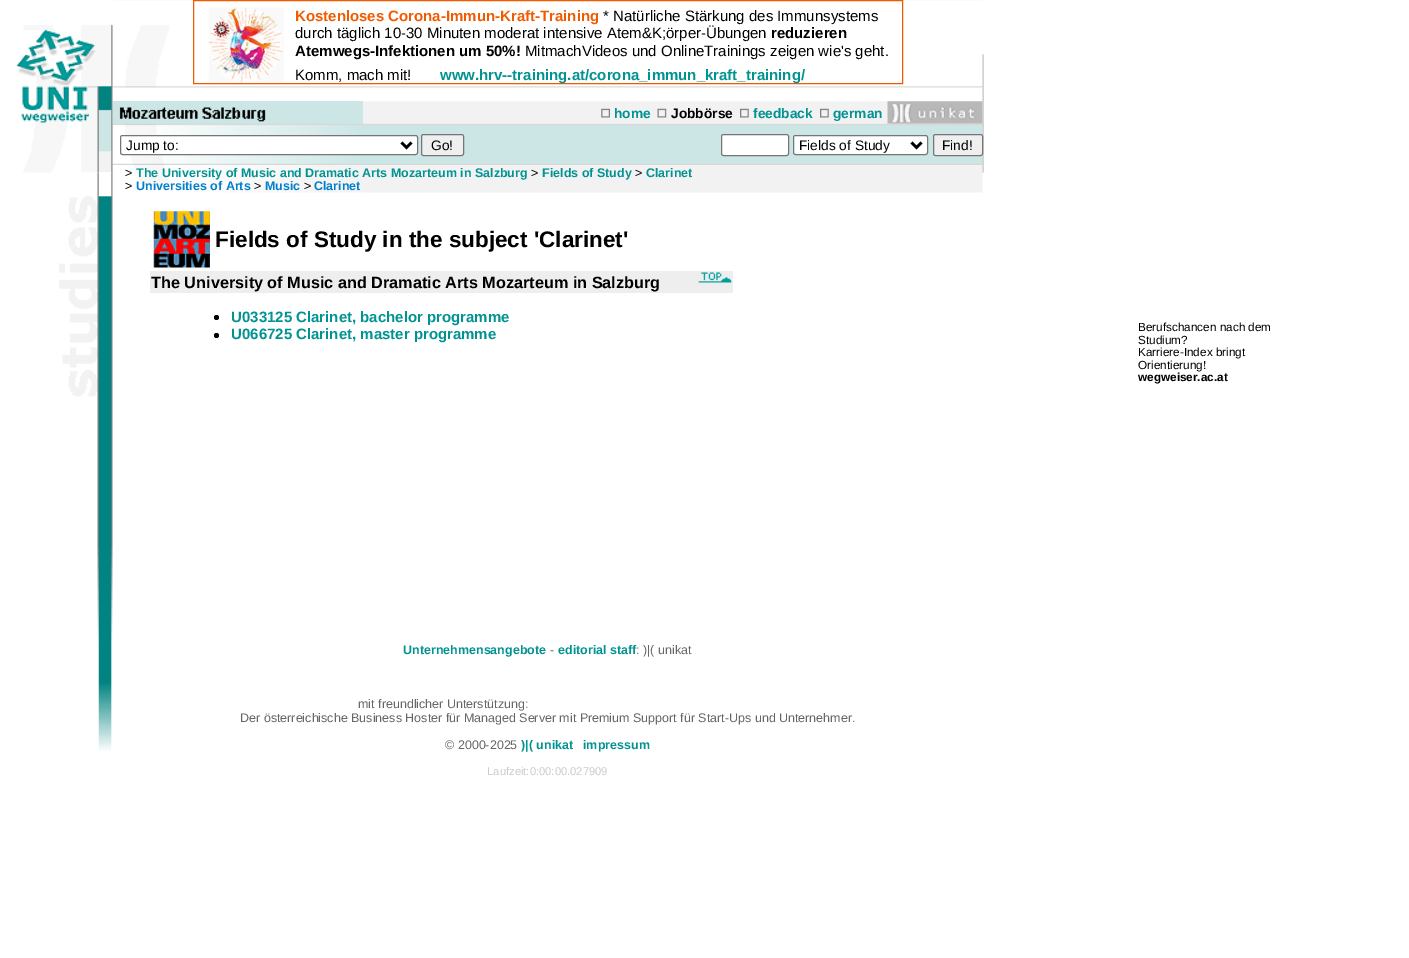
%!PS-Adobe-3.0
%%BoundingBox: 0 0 1409 958
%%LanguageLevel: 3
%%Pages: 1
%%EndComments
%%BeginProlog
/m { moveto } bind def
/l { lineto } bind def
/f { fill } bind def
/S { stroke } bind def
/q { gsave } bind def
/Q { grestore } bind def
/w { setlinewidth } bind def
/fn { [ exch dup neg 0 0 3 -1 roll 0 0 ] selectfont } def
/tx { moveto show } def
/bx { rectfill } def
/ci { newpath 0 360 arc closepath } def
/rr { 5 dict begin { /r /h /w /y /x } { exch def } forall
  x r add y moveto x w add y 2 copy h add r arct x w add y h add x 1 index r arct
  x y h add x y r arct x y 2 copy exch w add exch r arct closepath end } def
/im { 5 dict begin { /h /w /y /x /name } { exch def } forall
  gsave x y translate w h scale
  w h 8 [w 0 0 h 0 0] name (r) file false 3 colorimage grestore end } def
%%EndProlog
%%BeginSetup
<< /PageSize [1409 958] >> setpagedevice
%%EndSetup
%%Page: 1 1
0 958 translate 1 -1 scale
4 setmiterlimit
1 setgray
0 0 1409 958 bx
(image2.raw) 112 0 871 88 im
(image5.raw) 112 101 871 23 im
0.8 0.902 0.902 setrgbcolor
113 101 250 23 bx
(image10.raw) 112 123 871 42 im
(image0.raw) 16 24 97 149 im
(image1.raw) 59 172 54 579 im
0.945 0.357 0 setrgbcolor
193.5 0.5 709 83 rectstroke
(image3.raw) 208 7 76 76 im
/LiberationSans-Bold 15 fn
(Kostenloses Corona-Immun-Kraft-Training) 295 21 tx
/LiberationSans-Regular 15 fn
0 setgray
(* Natürliche Stärkung des Immunsystems) 603 21 tx
(durch täglich 10-30 Minuten moderat intensive Atem&K;örper-Übungen) 295 38 tx
/LiberationSans-Bold 15 fn
(reduzieren) 771 38 tx
(Atemwegs-Infektionen um 50%!) 295 56 tx
/LiberationSans-Regular 15 fn
(MitmachVideos und OnlineTrainings zeigen wie's geht.) 525 56 tx
(Komm, mach mit!) 295 80 tx
/LiberationSans-Bold 15 fn
0 0.576 0.573 setrgbcolor
(www.hrv--training.at/corona_immun_kraft_training/) 440 80 tx
(image11.raw) 134 165 849 28 im
(image4.raw) 982 54 2 119 im
(image6.raw) 119 107 147 15 im
(image7.raw) 601 108 9 10 im
/LiberationSans-Bold 13.75 fn
(home) 614 118 tx
(image8.raw) 657 108 10 10 im
0 setgray
(Jobbörse) 671 118 tx
(image9.raw) 740 108 9 10 im
0 0.576 0.573 setrgbcolor
(feedback) 753 118 tx
(image9.raw) 820 108 9 10 im
(german) 833 118 tx
1 setgray
120.5 135.5 297 19 2 rr q f Q
0.463 setgray
S
0 setgray
2.5 w
401.5 142.5 m 406.5 147.5 l 411.5 142.5 l S
/LiberationSans-Regular 13.75 fn
(Jump to:) 126 150 tx
0.937 setgray
421.5 134.5 42 21 2 rr q f Q
0.463 setgray
1 w
S
0 setgray
(Go!) 431 150 tx
1 setgray
721.5 134.5 67 21 2 rr q f Q
0.463 setgray
S
1 setgray
793.5 135.5 134 19 2 rr q f Q
0.463 setgray
S
0 setgray
2.5 w
911.5 142.5 m 916.5 147.5 l 921.5 142.5 l S
(Fields of Study) 799 150 tx
0.937 setgray
933.5 134.5 49 21 2 rr q f Q
0.463 setgray
1 w
S
0 setgray
(Find!) 942 150 tx
/LiberationSans-Regular 12.5 fn
(>) 125 177 tx
/LiberationSans-Bold 12.5 fn
0 0.576 0.573 setrgbcolor
(The University of Music and Dramatic Arts Mozarteum in Salzburg) 136 177 tx
/LiberationSans-Regular 12.5 fn
0 setgray
(>) 531 177 tx
/LiberationSans-Bold 12.5 fn
0 0.576 0.573 setrgbcolor
(Fields of Study) 542 177 tx
/LiberationSans-Regular 12.5 fn
0 setgray
(>) 635 177 tx
/LiberationSans-Bold 12.5 fn
0 0.576 0.573 setrgbcolor
(Clarinet) 646 177 tx
/LiberationSans-Regular 12.5 fn
0 setgray
(>) 125 190 tx
/LiberationSans-Bold 12.5 fn
0 0.498 0.8 setrgbcolor
(Universities of Arts) 136 190 tx
/LiberationSans-Regular 12.5 fn
0 setgray
(>) 254 190 tx
/LiberationSans-Bold 12.5 fn
0 0.498 0.8 setrgbcolor
(Music) 265 190 tx
/LiberationSans-Regular 12.5 fn
0 setgray
(>) 304 190 tx
/LiberationSans-Bold 12.5 fn
0 0.498 0.8 setrgbcolor
(Clarinet) 314 190 tx
(image12.raw) 153 211 57 57 im
/LiberationSans-Bold 22.5 fn
0 setgray
(Fields of Study in the subject 'Clarinet') 215 247 tx
0.933 setgray
150 271 583 22 bx
/LiberationSans-Bold 16.25 fn
0 setgray
(The University of Music and Dramatic Arts Mozarteum in Salzburg) 151 288 tx
(image13.raw) 698 272 34 11 im
216.5 317.5 2.5 ci f
/LiberationSans-Bold 15 fn
0 0.576 0.573 setrgbcolor
(U033125 Clarinet, bachelor programme) 231 322 tx
0 setgray
216.5 335.5 2.5 ci f
0 0.576 0.573 setrgbcolor
(U066725 Clarinet, master programme) 231 339 tx
/LiberationSans-Bold 12.5 fn
(Unternehmensangebote) 403 654 tx
/LiberationSans-Regular 12.5 fn
0.4 setgray
(-) 550 654 tx
/LiberationSans-Bold 12.5 fn
0 0.576 0.573 setrgbcolor
(editorial staff) 558 654 tx
/LiberationSans-Regular 12.5 fn
0.4 setgray
(: \)|\( unikat) 636 654 tx
(mit freundlicher Unterstützung:) 358 708 tx
(Der österreichische Business Hoster für Managed Server mit Premium Support für Start-Ups und Unternehmer.) 240 722 tx
(© 2000-2025) 445 749 tx
/LiberationSans-Bold 12.5 fn
0 0.576 0.573 setrgbcolor
(\)|\( unikat) 521 749 tx
(impressum) 583 749 tx
/LiberationSans-Regular 11.25 fn
0.8 setgray
(Laufzeit:0:00:00.027909) 487 775 tx
/LiberationSans-Regular 11.75 fn
0 setgray
(Berufschancen nach dem) 1138 331 tx
(Studium?) 1138 344 tx
(Karriere-Index bringt) 1138 356 tx
(Orientierung!) 1138 369 tx
/LiberationSans-Bold 11.75 fn
(wegweiser.ac.at) 1138 381 tx
showpage
%%EOF
